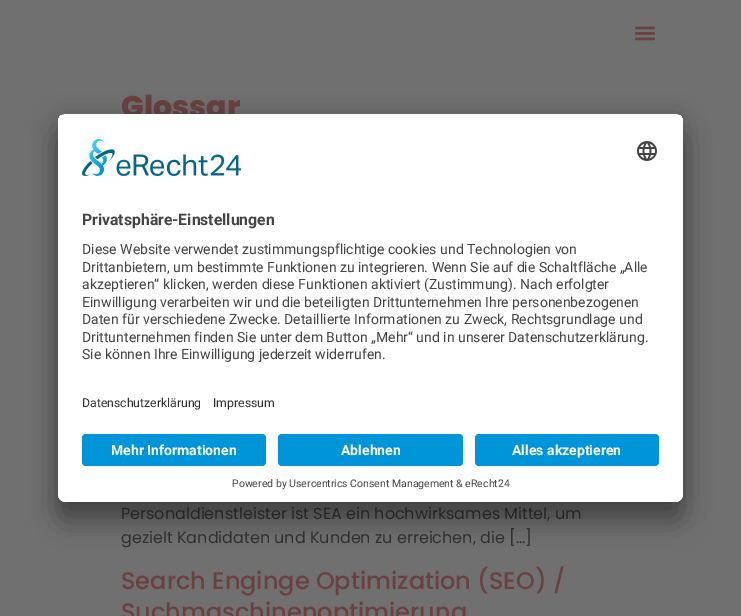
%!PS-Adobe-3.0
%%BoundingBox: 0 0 741 616
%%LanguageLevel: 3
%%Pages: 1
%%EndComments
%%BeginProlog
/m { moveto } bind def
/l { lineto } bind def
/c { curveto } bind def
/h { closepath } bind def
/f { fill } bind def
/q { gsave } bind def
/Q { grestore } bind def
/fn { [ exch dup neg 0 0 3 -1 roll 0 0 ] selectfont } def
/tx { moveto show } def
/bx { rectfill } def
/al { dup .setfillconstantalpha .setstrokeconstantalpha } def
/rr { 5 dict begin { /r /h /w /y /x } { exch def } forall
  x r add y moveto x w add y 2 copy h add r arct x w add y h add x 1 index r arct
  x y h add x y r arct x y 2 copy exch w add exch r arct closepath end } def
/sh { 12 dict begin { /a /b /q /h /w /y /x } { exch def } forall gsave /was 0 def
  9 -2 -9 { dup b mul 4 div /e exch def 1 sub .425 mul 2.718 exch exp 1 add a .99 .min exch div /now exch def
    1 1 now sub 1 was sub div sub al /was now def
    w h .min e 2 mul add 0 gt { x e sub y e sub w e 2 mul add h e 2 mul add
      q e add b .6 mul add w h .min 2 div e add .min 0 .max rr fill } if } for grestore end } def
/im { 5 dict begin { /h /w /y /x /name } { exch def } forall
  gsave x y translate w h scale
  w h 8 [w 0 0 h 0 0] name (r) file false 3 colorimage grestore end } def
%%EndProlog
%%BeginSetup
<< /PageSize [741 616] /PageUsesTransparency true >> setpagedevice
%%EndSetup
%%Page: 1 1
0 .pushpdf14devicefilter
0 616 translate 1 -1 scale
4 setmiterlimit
0.439 setgray
0 0 741 616 bx
(image0.raw) 634 26 21 15 im
/Poppins-ExtraBold 30 fn
0.416 0.255 0.255 setrgbcolor
(Glossar) 121 117 tx
/Poppins-Regular 16 fn
0.192 setgray
(Personaldienstleister ist SEA ein hochwirksames Mittel, um) 121 519 tx
(gezielt Kandidaten und Kunden zu erreichen, die […]) 121 543 tx
/Poppins-Medium 24 fn
0.416 0.255 0.255 setrgbcolor
(Search Enginge Optimization \(SEO\) /) 121 589 tx
(Suchmaschinenoptimierung) 121 620 tx
0 setgray
58 134 625 388 8 14 0.3 sh
58 119 625 388 8 13 0.22 sh
1 setgray
58 114 625 388 8 rr f
q
58 114 625 388 8 rr clip newpath
66 114 m 675 114 l 679.5 114 683 117.5 683 122 c 683 426 l 58 426 l 58 122 l 58 117.5 61.5 114 66 114 c h clip newpath
58 115 625 311 bx
Q
(image1.raw) 82 139 160 37 im
(image2.raw) 637 141 20 20 im
/Roboto-Bold 15.75 fn
0.267 setgray
(Privatsphäre-Einstellungen) 82 225 tx
/Roboto-Regular 14 fn
(Diese Website verwendet zustimmungspflichtige cookies und Technologien von) 82 254 tx
(Drittanbietern, um bestimmte Funktionen zu integrieren. Wenn Sie auf die Schaltfläche „Alle) 82 272 tx
(akzeptieren“ klicken, werden diese Funktionen aktiviert \(Zustimmung\). Nach erfolgter) 82 289 tx
(Einwilligung verarbeiten wir und die beteiligten Drittunternehmen Ihre personenbezogenen) 82 307 tx
(Daten für verschiedene Zwecke. Detaillierte Informationen zu Zweck, Rechtsgrundlage und) 82 324 tx
(Drittunternehmen finden Sie unter dem Button „Mehr“ und in unserer Datenschutzerklärung.) 82 342 tx
(Sie können Ihre Einwilligung jederzeit widerrufen.) 82 359 tx
/Roboto-Regular 12.25 fn
0.192 setgray
(Datenschutzerklärung) 82 407 tx
(Impressum) 213 407 tx
1 setgray
58 426 m 683 426 l 683 494 l 683 498.5 679.5 502 675 502 c 66 502 l 61.5 502 58 498.5 58 494 c h f
0 0.58 0.847 setrgbcolor
82 434 184 32 4 rr f
/Roboto-Bold 14 fn
1 setgray
(Mehr Informationen) 111 455 tx
0 0.58 0.847 setrgbcolor
278 434 185 32 4 rr f
1 setgray
(Ablehnen) 341 455 tx
0 0.58 0.847 setrgbcolor
475 434 184 32 4 rr f
1 setgray
(Alles akzeptieren) 512 455 tx
/Roboto-Regular 10.5 fn
0.267 setgray
(Powered by Usercentrics Consent Management & eRecht24) 232 487 tx
.poppdf14devicefilter showpage
%%EOF
